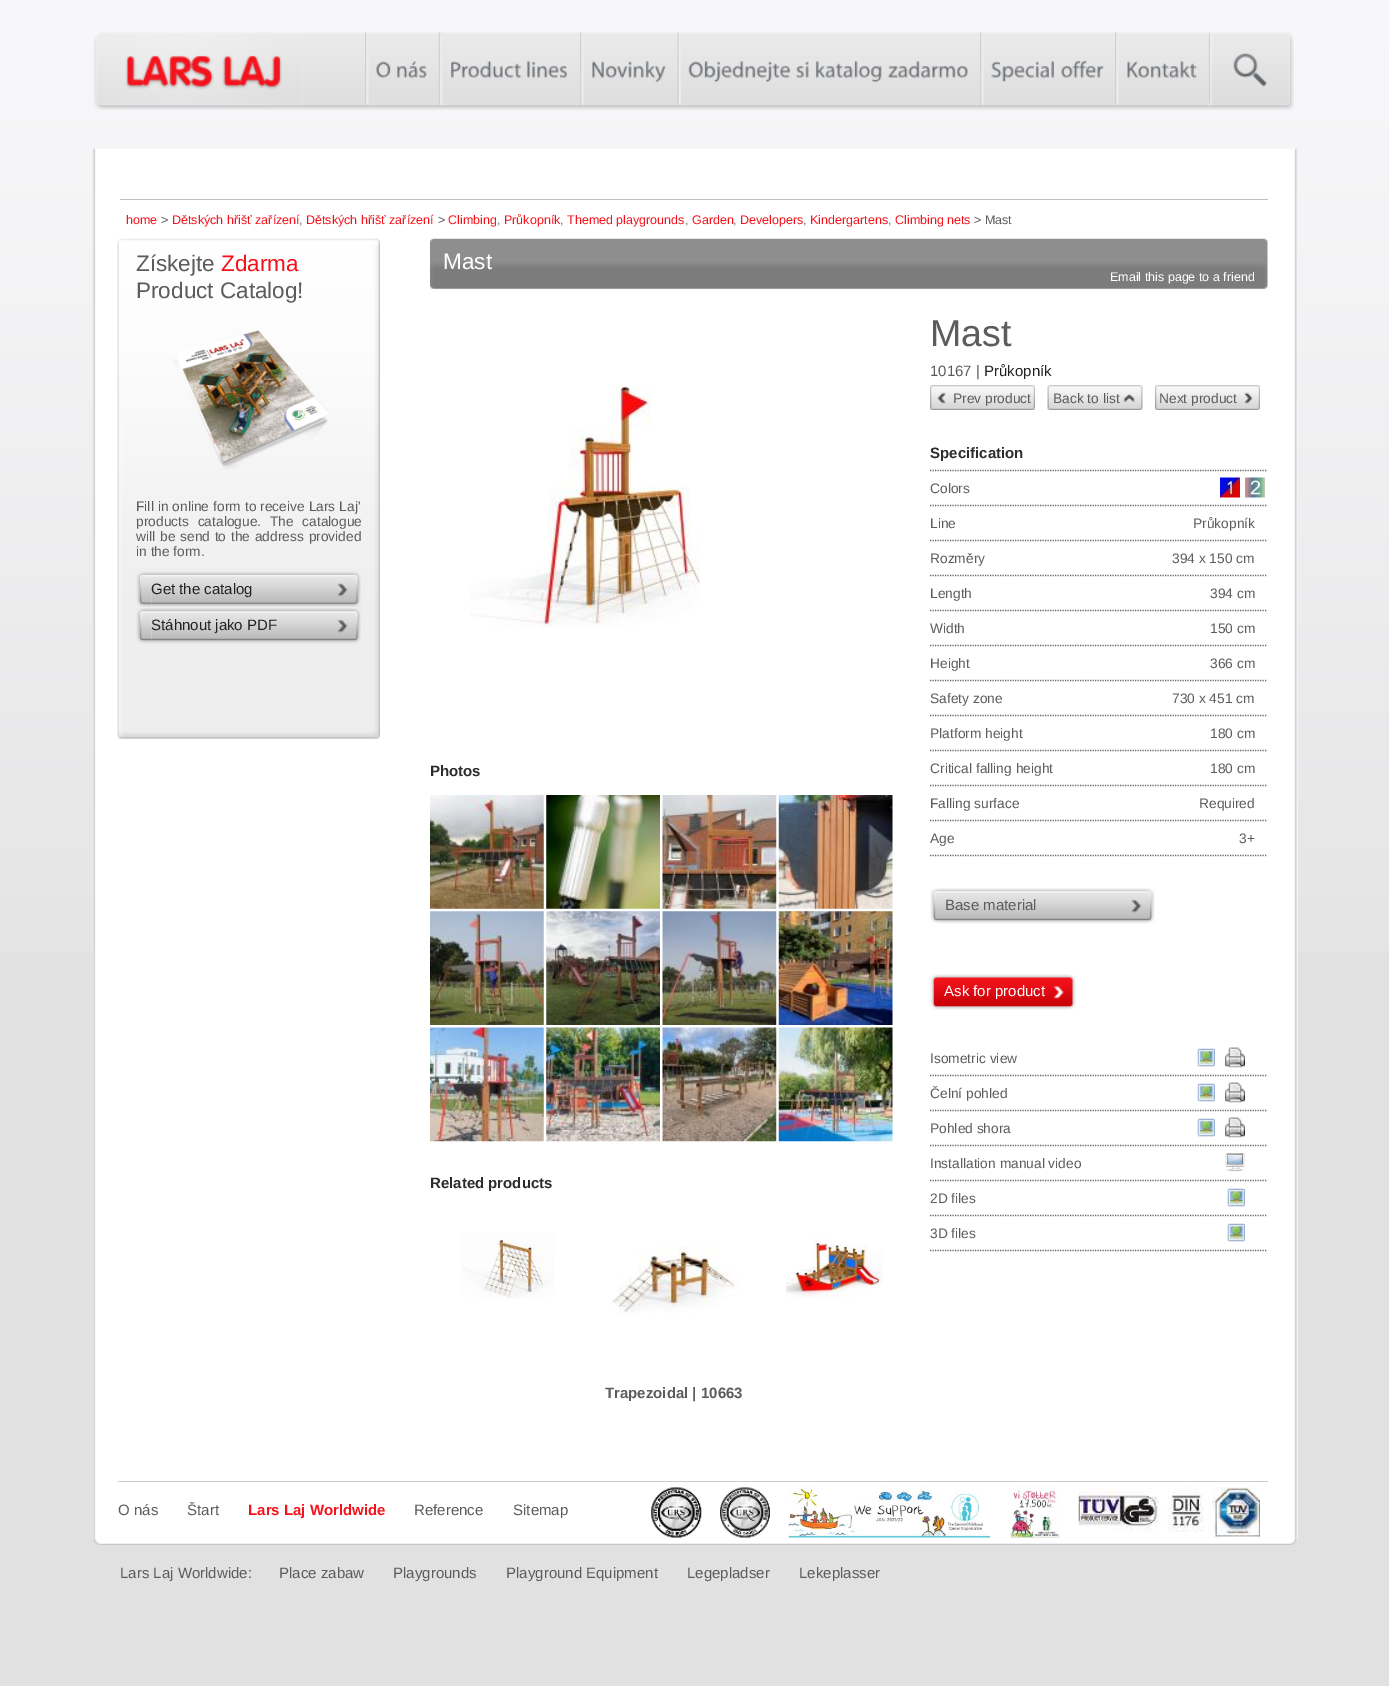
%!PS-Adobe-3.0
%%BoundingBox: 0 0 1389 1686
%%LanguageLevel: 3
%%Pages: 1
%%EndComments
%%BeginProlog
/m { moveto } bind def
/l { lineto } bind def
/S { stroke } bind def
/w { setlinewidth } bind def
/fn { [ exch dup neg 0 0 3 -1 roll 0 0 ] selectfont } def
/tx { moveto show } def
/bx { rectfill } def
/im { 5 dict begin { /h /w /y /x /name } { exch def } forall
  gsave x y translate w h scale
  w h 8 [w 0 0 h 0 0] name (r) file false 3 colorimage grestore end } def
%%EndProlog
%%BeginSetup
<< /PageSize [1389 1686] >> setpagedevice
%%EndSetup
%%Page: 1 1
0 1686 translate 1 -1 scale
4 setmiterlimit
0.882 setgray
0 0 1389 1686 bx
(image0.raw) 0 0 1389 953 im
(image1.raw) 93 32 210 78 im
(image2.raw) 125 55 157 35 im
(image3.raw) 302 32 907 78 im
(image4.raw) 365 32 4 73 im
(image5.raw) 376 61 15 17 im
(image6.raw) 396 61 31 17 im
(image7.raw) 438 32 5 73 im
(image8.raw) 451 61 71 17 im
(image9.raw) 526 61 42 17 im
(image4.raw) 580 32 4 73 im
(image10.raw) 592 61 74 22 im
(image11.raw) 677 32 4 73 im
(image12.raw) 688 61 103 22 im
(image13.raw) 796 61 13 17 im
(image14.raw) 815 61 67 22 im
(image15.raw) 888 61 80 17 im
(image4.raw) 980 32 4 73 im
(image16.raw) 991 61 63 21 im
(image17.raw) 1061 61 43 17 im
(image4.raw) 1115 32 4 73 im
(image18.raw) 1127 61 70 17 im
(image19.raw) 1208 32 86 78 im
1 setgray
93 149 1205 1390 bx
(image20.raw) 92 148 1206 1391 im
0.757 setgray
120 199 1148 1 bx
/LiberationSans-Regular 12.5 fn
0.957 0.075 0.11 setrgbcolor
(home) 126 224 tx
0.361 setgray
(>) 161 224 tx
0.957 0.075 0.11 setrgbcolor
(Dětských hřišť zařízení) 172 224 tx
0.361 setgray
(,) 299 224 tx
0.957 0.075 0.11 setrgbcolor
(Dětských hřišť zařízení) 306 224 tx
0.361 setgray
(>) 438 224 tx
0.957 0.075 0.11 setrgbcolor
(Climbing) 448 224 tx
0.361 setgray
(,) 497 224 tx
0.957 0.075 0.11 setrgbcolor
(Průkopník) 504 224 tx
0.361 setgray
(,) 560 224 tx
0.957 0.075 0.11 setrgbcolor
(Themed playgrounds) 567 224 tx
0.361 setgray
(,) 685 224 tx
0.957 0.075 0.11 setrgbcolor
(Garden) 692 224 tx
0.361 setgray
(,) 733 224 tx
0.957 0.075 0.11 setrgbcolor
(Developers) 740 224 tx
0.361 setgray
(,) 803 224 tx
0.957 0.075 0.11 setrgbcolor
(Kindergartens) 810 224 tx
0.361 setgray
(,) 888 224 tx
0.957 0.075 0.11 setrgbcolor
(Climbing nets) 895 224 tx
0.361 setgray
(> Mast) 974 224 tx
(image21.raw) 117 238 263 501 im
/LiberationSans-Regular 22.5 fn
(Získejte) 136 271 tx
0.957 0.075 0.11 setrgbcolor
(Zdarma) 221 271 tx
0.361 setgray
(Product Catalog!) 136 298 tx
(image22.raw) 173 330 157 140 im
/LiberationSans-Regular 13.75 fn
136 511 m 0.25 0 32 (Fill in online form to receive Lars Laj') widthshow
136 526 m 5 0 32 (products catalogue. The catalogue) widthshow
136 541 m 1 0 32 (will be send to the address provided) widthshow
(in the form.) 136 556 tx
(image23.raw) 136 571 16 36 im
(image24.raw) 151 571 210 36 im
/LiberationSans-Regular 15 fn
0.133 setgray
(Get the catalog) 151 594 tx
(image25.raw) 136 608 16 36 im
(image26.raw) 151 608 210 36 im
(Stáhnout jako PDF) 151 630 tx
(image27.raw) 430 238 838 51 im
/LiberationSans-Regular 22.5 fn
1 setgray
(Mast) 443 269 tx
/LiberationSans-Regular 12.5 fn
(Email this page to a friend) 1110 281 tx
(image28.raw) 470 386 231 242 im
/LiberationSans-Bold 15 fn
0.173 setgray
(Photos) 430 776 tx
(image29.raw) 430 795 114 114 im
(image30.raw) 546 795 114 114 im
(image31.raw) 662 795 115 114 im
(image32.raw) 778 795 115 114 im
(image33.raw) 430 911 114 114 im
(image34.raw) 546 911 114 114 im
(image35.raw) 662 911 115 114 im
(image36.raw) 778 911 115 114 im
(image37.raw) 430 1027 114 115 im
(image38.raw) 546 1027 114 115 im
(image39.raw) 662 1027 115 115 im
(image40.raw) 778 1027 115 115 im
(Related products) 430 1188 tx
(image41.raw) 461 1232 94 67 im
(image42.raw) 609 1246 130 70 im
(image43.raw) 786 1232 97 67 im
0.361 setgray
(Trapezoidal | 10663) 605 1398 tx
/LiberationSans-Regular 37.5 fn
(Mast) 930 346 tx
/LiberationSans-Regular 15 fn
(10167 |) 930 376 tx
0.133 setgray
(Průkopník) 984 376 tx
(image44.raw) 1028 385 7 25 im
(image45.raw) 930 385 98 25 im
/LiberationSans-Regular 13.75 fn
0.361 setgray
(Prev product) 953 403 tx
(image46.raw) 1047 385 8 25 im
(image47.raw) 1055 385 88 25 im
(Back to list) 1053 403 tx
(image48.raw) 1155 385 7 25 im
(image49.raw) 1162 385 98 25 im
(Next product) 1159 403 tx
0.4 setgray
1.2 w
[1.25 1.25] 0 setdash
930 470.5 m 1267.5 470.5 l S
/LiberationSans-Bold 15 fn
0.173 setgray
(Specification) 930 458 tx
0.4 setgray
930 505.5 m 1267.5 505.5 l S
/LiberationSans-Regular 13.75 fn
0.361 setgray
(Colors) 930 493 tx
(image50.raw) 1220 477 20 21 im
(image51.raw) 1245 477 20 21 im
0.4 setgray
930 540.5 m 1267.5 540.5 l S
0.361 setgray
(Line) 930 528 tx
(Průkopník) 1193 528 tx
0.4 setgray
930 575.5 m 1267.5 575.5 l S
0.361 setgray
(Rozměry) 930 563 tx
(394 x 150 cm) 1172 563 tx
0.4 setgray
930 610.5 m 1267.5 610.5 l S
0.361 setgray
(Length) 930 598 tx
(394 cm) 1210 598 tx
0.4 setgray
930 645.5 m 1267.5 645.5 l S
0.361 setgray
(Width) 930 633 tx
(150 cm) 1210 633 tx
0.4 setgray
930 680.5 m 1267.5 680.5 l S
0.361 setgray
(Height) 930 668 tx
(366 cm) 1210 668 tx
0.4 setgray
930 715.5 m 1267.5 715.5 l S
0.361 setgray
(Safety zone) 930 703 tx
(730 x 451 cm) 1172 703 tx
0.4 setgray
930 750.5 m 1267.5 750.5 l S
0.361 setgray
(Platform height) 930 738 tx
(180 cm) 1210 738 tx
0.4 setgray
930 785.5 m 1267.5 785.5 l S
0.361 setgray
(Critical falling height) 930 773 tx
(180 cm) 1210 773 tx
0.4 setgray
930 820.5 m 1267.5 820.5 l S
0.361 setgray
(Falling surface) 930 808 tx
(Required) 1199 808 tx
0.4 setgray
930 855.5 m 1267.5 855.5 l S
0.361 setgray
(Age) 930 843 tx
(3+) 1239 843 tx
(image52.raw) 930 888 15 36 im
(image53.raw) 945 888 210 36 im
/LiberationSans-Regular 15 fn
(Base material) 945 910 tx
(image54.raw) 930 974 10 36 im
(image55.raw) 940 974 136 36 im
1 setgray
(Ask for product) 944 996 tx
0.4 setgray
930 1075.5 m 1267.5 1075.5 l S
/LiberationSans-Regular 13.75 fn
0.361 setgray
(Isometric view) 930 1063 tx
(image56.raw) 1197 1048 18 19 im
(image57.raw) 1225 1047 20 21 im
0.4 setgray
930 1110.5 m 1267.5 1110.5 l S
0.361 setgray
(Čelní pohled) 930 1098 tx
(image56.raw) 1197 1083 18 19 im
(image57.raw) 1225 1082 20 21 im
0.4 setgray
930 1145.5 m 1267.5 1145.5 l S
0.361 setgray
(Pohled shora) 930 1133 tx
(image56.raw) 1197 1118 18 19 im
(image57.raw) 1225 1117 20 21 im
0.4 setgray
930 1180.5 m 1267.5 1180.5 l S
0.361 setgray
(Installation manual video) 930 1168 tx
(image58.raw) 1225 1153 20 19 im
0.4 setgray
930 1215.5 m 1267.5 1215.5 l S
0.361 setgray
(2D files) 930 1203 tx
(image56.raw) 1227 1188 18 19 im
0.4 setgray
930 1250.5 m 1267.5 1250.5 l S
0.361 setgray
(3D files) 930 1238 tx
(image56.raw) 1227 1223 18 19 im
0.8 setgray
118 1481 1150 1 bx
/LiberationSans-Regular 15 fn
0.361 setgray
(O nás) 118 1515 tx
(Štart) 187 1515 tx
/LiberationSans-Bold 15 fn
0.957 0.075 0.11 setrgbcolor
(Lars Laj Worldwide) 248 1515 tx
/LiberationSans-Regular 15 fn
0.361 setgray
(Reference) 414 1515 tx
(Sitemap) 513 1515 tx
(image59.raw) 651 1487 51 51 im
(image60.raw) 720 1487 50 51 im
(image61.raw) 788 1487 202 51 im
(image62.raw) 1010 1487 50 51 im
(image63.raw) 1078 1487 182 51 im
(image64.raw) 93 1538 1204 7 im
(Lars Laj Worldwide:) 120 1578 tx
(Place zabaw) 279 1578 tx
(Playgrounds) 393 1578 tx
(Playground Equipment) 506 1578 tx
(Legepladser) 687 1578 tx
(Lekeplasser) 799 1578 tx
showpage
%%EOF
